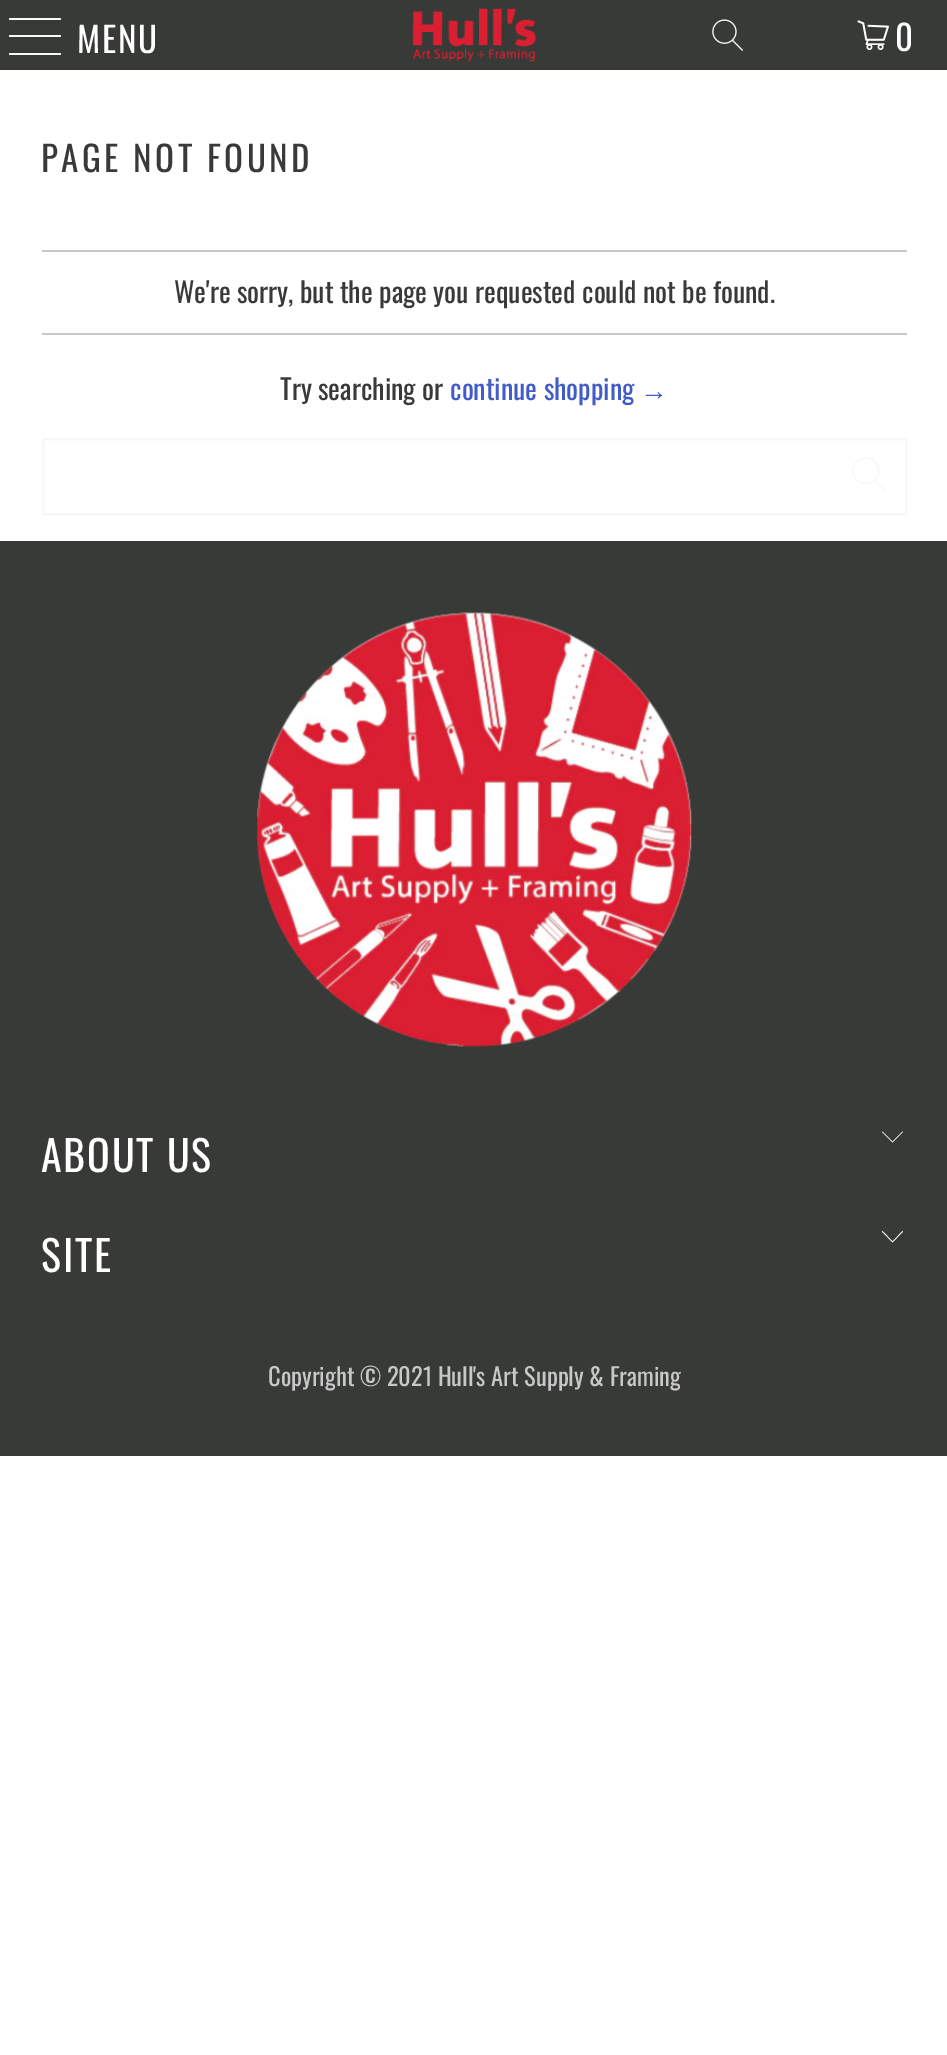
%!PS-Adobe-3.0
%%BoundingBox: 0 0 947 2055
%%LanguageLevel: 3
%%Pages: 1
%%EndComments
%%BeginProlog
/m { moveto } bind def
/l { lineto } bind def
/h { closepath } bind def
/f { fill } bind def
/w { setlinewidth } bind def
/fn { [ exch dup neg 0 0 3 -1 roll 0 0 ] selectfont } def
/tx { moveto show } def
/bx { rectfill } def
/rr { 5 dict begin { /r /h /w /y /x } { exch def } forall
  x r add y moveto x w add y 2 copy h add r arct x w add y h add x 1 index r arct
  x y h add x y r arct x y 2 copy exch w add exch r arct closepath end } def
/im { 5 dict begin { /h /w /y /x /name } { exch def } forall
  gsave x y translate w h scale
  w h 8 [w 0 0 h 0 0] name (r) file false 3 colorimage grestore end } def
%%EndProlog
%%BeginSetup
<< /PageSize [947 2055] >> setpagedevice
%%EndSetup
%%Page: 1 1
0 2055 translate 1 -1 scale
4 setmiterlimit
1 setgray
0 0 947 2055 bx
0.216 0.227 0.212 setrgbcolor
0 0 947 70 bx
0.98 setgray
9 18 52 2 1 rr f
9 35 52 2 1 rr f
9 53 52 2 1 rr f
/Oswald-Regular 35 fn
1 setgray
77 53 m 1.75 0 (MENU) ashow
(image0.raw) 412 8 124 54 im
(image1.raw) 712 19 31 32 im
(image2.raw) 857 20 32 30 im
(0) 895 51 tx
0.216 0.227 0.212 setrgbcolor
41 172 m 3.5 0 (PAGE NOT FOUND) ashow
0.784 setgray
42 250 865 2 bx
42 333 865 2 bx
/Oswald-Regular 28 fn
0.216 0.227 0.212 setrgbcolor
(We're sorry, but the page you requested could not be found.) 174 303 tx
(Try searching or) 280 400 tx
0.259 0.361 0.78 setrgbcolor
(continue shopping) 450 400 tx
/LiberationSans-Regular 28 fn
(→) 640 400 tx
0.965 0.969 0.976 setrgbcolor
2 w
43 439 863 75 rectstroke
(image3.raw) 852 457 34 35 im
0.216 0.227 0.212 setrgbcolor
0 541 947 915 bx
(image4.raw) 257 612 435 435 im
/Oswald-Regular 42 fn
1 setgray
41 1172 m 1.75 0 (ABOUT US) ashow
892.5 1142.5 m 882 1132 l 882.5 1131.5 l 892.5 1141.5 l 902.5 1131.5 l 903 1132 l h f
41 1272 m 1.75 0 (SITE) ashow
892.5 1242.5 m 882 1231.5 l 882.5 1231 l 892.5 1241.5 l 902.5 1231 l 903 1231.5 l h f
/Oswald-Regular 24.5 fn
0.784 setgray
(Copyright © 2021 Hull's Art Supply & Framing) 268 1386 tx
showpage
%%EOF
